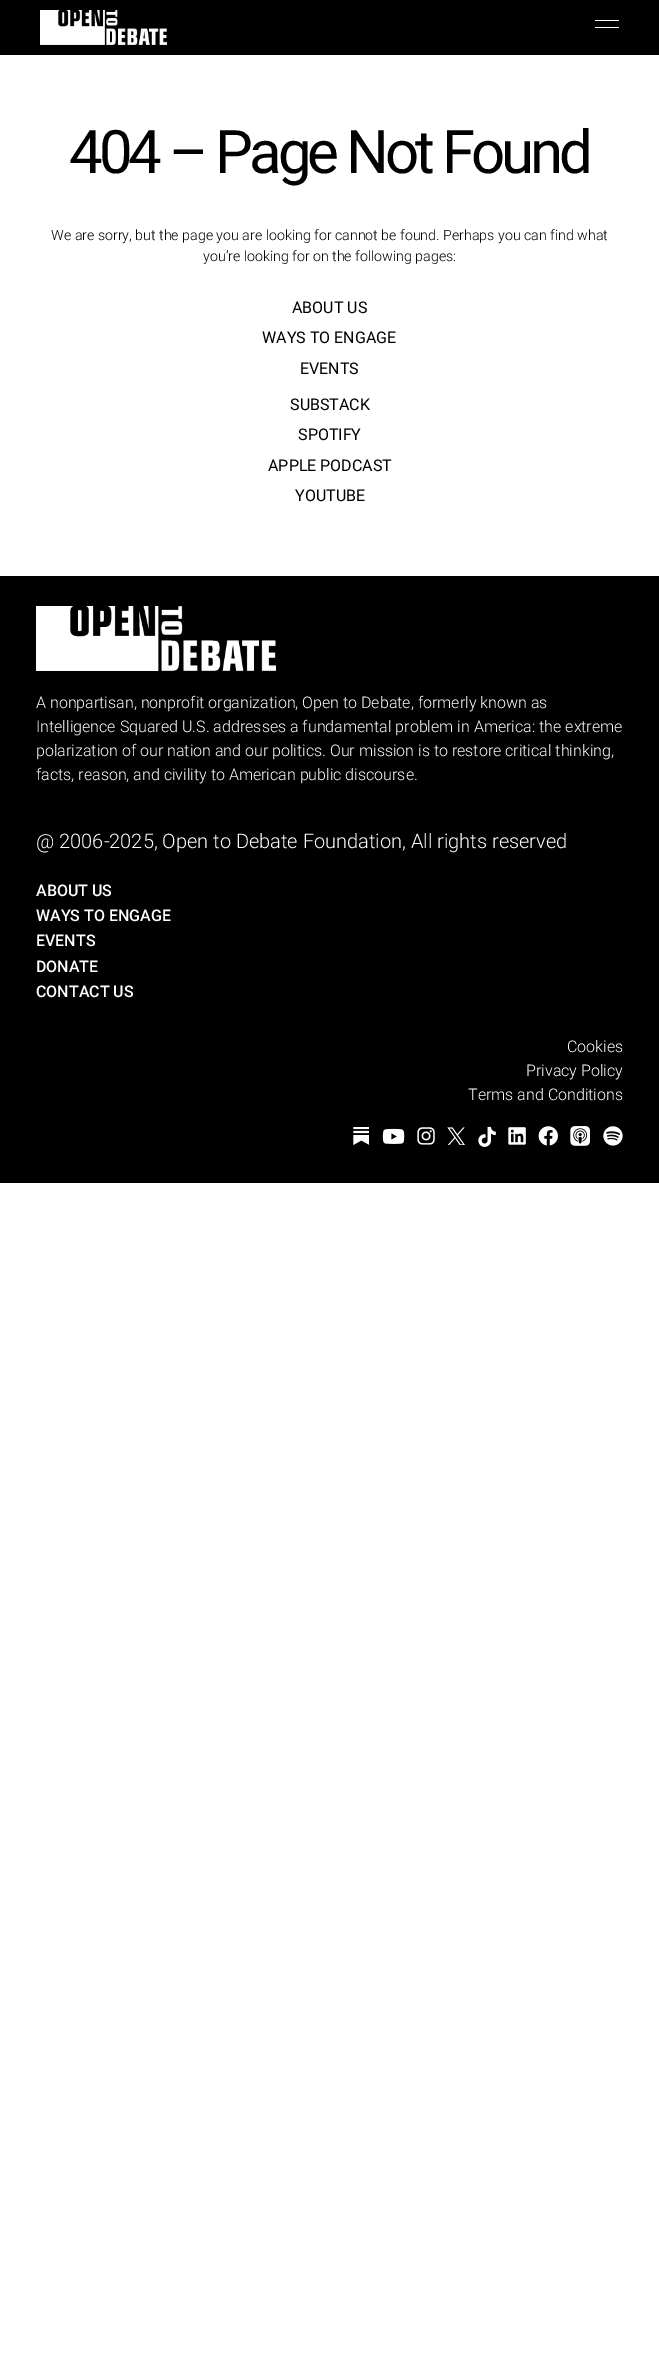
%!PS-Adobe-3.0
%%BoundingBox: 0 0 659 2373
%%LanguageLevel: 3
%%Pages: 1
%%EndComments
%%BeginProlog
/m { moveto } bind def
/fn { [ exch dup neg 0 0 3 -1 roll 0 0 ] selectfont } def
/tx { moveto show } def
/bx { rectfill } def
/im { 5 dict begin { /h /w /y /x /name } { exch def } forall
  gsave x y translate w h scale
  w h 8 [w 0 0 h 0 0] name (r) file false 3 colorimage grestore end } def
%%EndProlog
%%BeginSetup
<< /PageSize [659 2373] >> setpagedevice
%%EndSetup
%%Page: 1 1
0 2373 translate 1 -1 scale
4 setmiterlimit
1 setgray
0 0 659 2373 bx
0 setgray
0 0 659 55 bx
(image0.raw) 40 10 127 35 im
1 setgray
595 20 24 1 bx
595 27 24 1 bx
/Roboto-Regular 60 fn
0 setgray
69 173 m -4 0 (404 – Page Not Found) ashow
/Roboto-Light 14.2 fn
(We are sorry, but the page you are looking for cannot be found. Perhaps you can find what) 51 240 tx
(you’re looking for on the following pages:) 203 261 tx
/Roboto-Regular 16 fn
(ABOUT US) 292 313 tx
(WAYS TO ENGAGE) 262 343 tx
(EVENTS) 300 374 tx
(SUBSTACK) 290 410 tx
(SPOTIFY) 298 440 tx
(APPLE PODCAST) 268 471 tx
(YOUTUBE) 295 501 tx
0 576 659 607 bx
(image1.raw) 36 606 240 65 im
/Roboto-Light 16 fn
1 setgray
(A nonpartisan, nonprofit organization, Open to Debate, formerly known as) 36 708 tx
(Intelligence Squared U.S. addresses a fundamental problem in America: the extreme) 36 732 tx
(polarization of our nation and our politics. Our mission is to restore critical thinking,) 36 756 tx
(facts, reason, and civility to American public discourse.) 36 780 tx
/Roboto-Light 20 fn
(@ 2006-2025, Open to Debate Foundation, All rights reserved) 36 848 tx
/Roboto-Medium 16 fn
(ABOUT US) 36 896 tx
(WAYS TO ENGAGE) 36 921 tx
(EVENTS) 36 946 tx
(DONATE) 36 972 tx
(CONTACT US) 36 997 tx
/Roboto-Light 16 fn
(Cookies) 567 1052 tx
(Privacy Policy) 526 1076 tx
(Terms and Conditions) 468 1100 tx
(image2.raw) 353 1127 16 18 im
(image3.raw) 382 1128 23 16 im
(image4.raw) 417 1127 18 18 im
(image5.raw) 447 1127 18 18 im
(image6.raw) 478 1126 18 21 im
(image7.raw) 508 1127 18 18 im
(image8.raw) 538 1126 20 20 im
(image9.raw) 570 1126 20 20 im
(image10.raw) 603 1126 20 20 im
showpage
%%EOF
